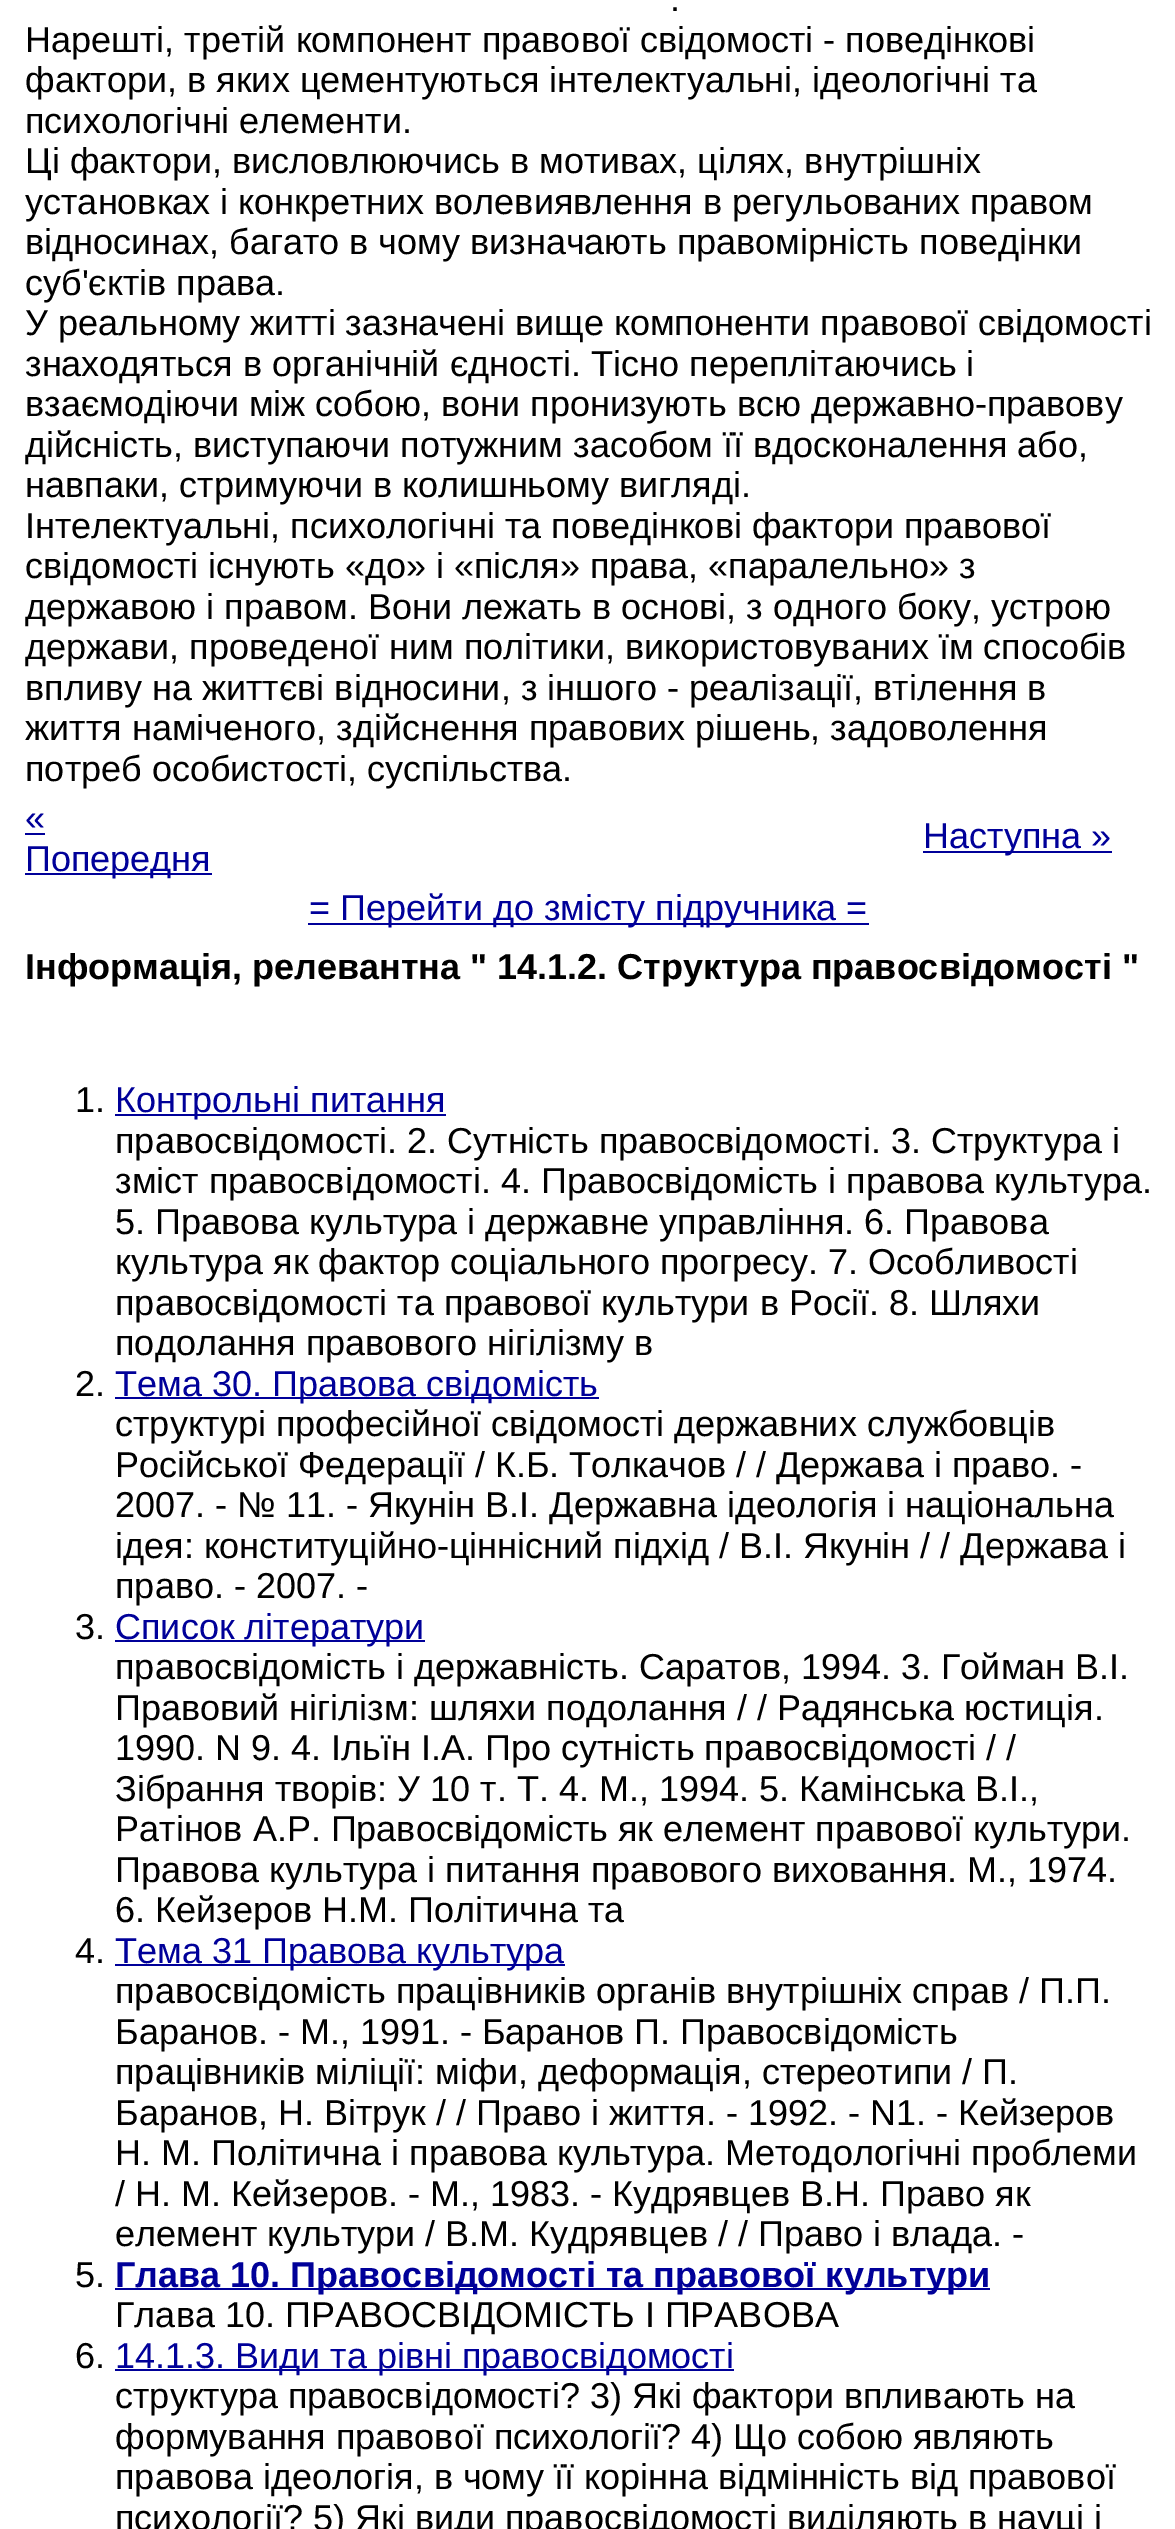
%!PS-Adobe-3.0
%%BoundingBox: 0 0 1175 2529
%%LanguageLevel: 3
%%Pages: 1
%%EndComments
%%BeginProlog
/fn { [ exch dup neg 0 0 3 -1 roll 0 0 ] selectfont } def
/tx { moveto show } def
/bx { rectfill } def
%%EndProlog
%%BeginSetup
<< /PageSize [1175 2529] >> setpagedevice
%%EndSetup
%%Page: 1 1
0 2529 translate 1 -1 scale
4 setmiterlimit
1 setgray
0 0 1175 2529 bx
/LiberationSans-Regular 36 fn
0 setgray
(.) 670 11 tx
(Нарешті, третій компонент правової свідомості - поведінкові) 25 52 tx
(фактори, в яких цементуються інтелектуальні, ідеологічні та) 25 92 tx
(психологічні елементи.) 25 133 tx
(Ці фактори, висловлюючись в мотивах, цілях, внутрішніх) 25 173 tx
(установках і конкретних волевиявлення в регульованих правом) 25 214 tx
(відносинах, багато в чому визначають правомірність поведінки) 25 254 tx
(суб'єктів права.) 25 295 tx
(У реальному житті зазначені вище компоненти правової свідомості) 25 335 tx
(знаходяться в органічній єдності. Тісно переплітаючись і) 25 376 tx
(взаємодіючи між собою, вони пронизують всю державно-правову) 25 416 tx
(дійсність, виступаючи потужним засобом її вдосконалення або,) 25 457 tx
(навпаки, стримуючи в колишньому вигляді.) 25 497 tx
(Інтелектуальні, психологічні та поведінкові фактори правової) 25 538 tx
(свідомості існують «до» і «після» права, «паралельно» з) 25 578 tx
(державою і правом. Вони лежать в основі, з одного боку, устрою) 25 619 tx
(держави, проведеної ним політики, використовуваних їм способів) 25 659 tx
(впливу на життєві відносини, з іншого - реалізації, втілення в) 25 700 tx
(життя наміченого, здійснення правових рішень, задоволення) 25 740 tx
(потреб особистості, суспільства.) 25 781 tx
0 0 0.6 setrgbcolor
(«) 25 830 tx
25 833 20 2 bx
25 873 187 2 bx
(Попередня) 25 871 tx
923 851 189 2 bx
(Наступна ») 923 848 tx
308 923 561 2 bx
(= Перейти до змісту підручника =) 309 920 tx
/LiberationSans-Bold 36 fn
0 setgray
(Інформація, релевантна " 14.1.2. Структура правосвідомості ") 25 979 tx
/LiberationSans-Regular 36 fn
(1.) 75 1112 tx
0 0 0.6 setrgbcolor
115 1114 331 2 bx
(Контрольні питання) 115 1112 tx
0 setgray
(правосвідомості. 2. Сутність правосвідомості. 3. Структура і) 115 1153 tx
(зміст правосвідомості. 4. Правосвідомість і правова культура.) 115 1193 tx
(5. Правова культура і державне управління. 6. Правова) 115 1234 tx
(культура як фактор соціального прогресу. 7. Особливості) 115 1274 tx
(правосвідомості та правової культури в Росії. 8. Шляхи) 115 1315 tx
(подолання правового нігілізму в) 115 1355 tx
(2.) 75 1396 tx
0 0 0.6 setrgbcolor
115 1397 484 2 bx
(Тема 30. Правова свідомість) 115 1396 tx
0 setgray
(структурі професійної свідомості державних службовців) 115 1436 tx
(Російської Федерації / К.Б. Толкачов / / Держава і право. -) 115 1477 tx
(2007. - № 11. - Якунін В.І. Державна ідеологія і національна) 115 1517 tx
(ідея: конституційно-ціннісний підхід / В.І. Якунін / / Держава і) 115 1558 tx
(право. - 2007. -) 115 1598 tx
(3.) 75 1639 tx
0 0 0.6 setrgbcolor
115 1640 310 2 bx
(Список літератури) 115 1639 tx
0 setgray
(правосвідомість і державність. Саратов, 1994. 3. Гойман В.І.) 115 1679 tx
(Правовий нігілізм: шляхи подолання / / Радянська юстиція.) 115 1720 tx
(1990. N 9. 4. Ільїн І.А. Про сутність правосвідомості / /) 115 1760 tx
(Зібрання творів: У 10 т. Т. 4. М., 1994. 5. Камінська В.І.,) 115 1801 tx
(Ратінов А.Р. Правосвідомість як елемент правової культури.) 115 1841 tx
(Правова культура і питання правового виховання. М., 1974.) 115 1882 tx
(6. Кейзеров Н.М. Політична та) 115 1922 tx
(4.) 75 1963 tx
0 0 0.6 setrgbcolor
115 1964 450 2 bx
(Тема 31 Правова культура) 115 1963 tx
0 setgray
(правосвідомість працівників органів внутрішніх справ / П.П.) 115 2003 tx
(Баранов. - М., 1991. - Баранов П. Правосвідомість) 115 2044 tx
(працівників міліції: міфи, деформація, стереотипи / П.) 115 2084 tx
(Баранов, Н. Вітрук / / Право і життя. - 1992. - N1. - Кейзеров) 115 2125 tx
(Н. М. Політична і правова культура. Методологічні проблеми) 115 2165 tx
(/ Н. М. Кейзеров. - М., 1983. - Кудрявцев В.Н. Право як) 115 2206 tx
(елемент культури / В.М. Кудрявцев / / Право і влада. -) 115 2246 tx
(5.) 75 2287 tx
0 0 0.6 setrgbcolor
115 2288 875 2 bx
/LiberationSans-Bold 36 fn
(Глава 10. Правосвідомості та правової культури) 115 2287 tx
/LiberationSans-Regular 36 fn
0 setgray
(Глава 10. ПРАВОСВІДОМІСТЬ І ПРАВОВА) 115 2327 tx
(6.) 75 2368 tx
0 0 0.6 setrgbcolor
115 2369 619 2 bx
(14.1.3. Види та рівні правосвідомості) 115 2368 tx
0 setgray
(структура правосвідомості? 3\) Які фактори впливають на) 115 2408 tx
(формування правової психології? 4\) Що собою являють) 115 2449 tx
(правова ідеологія, в чому її корінна відмінність від правової) 115 2489 tx
(психології? 5\) Які види правосвідомості виділяють в науці і) 115 2530 tx
showpage
%%EOF
